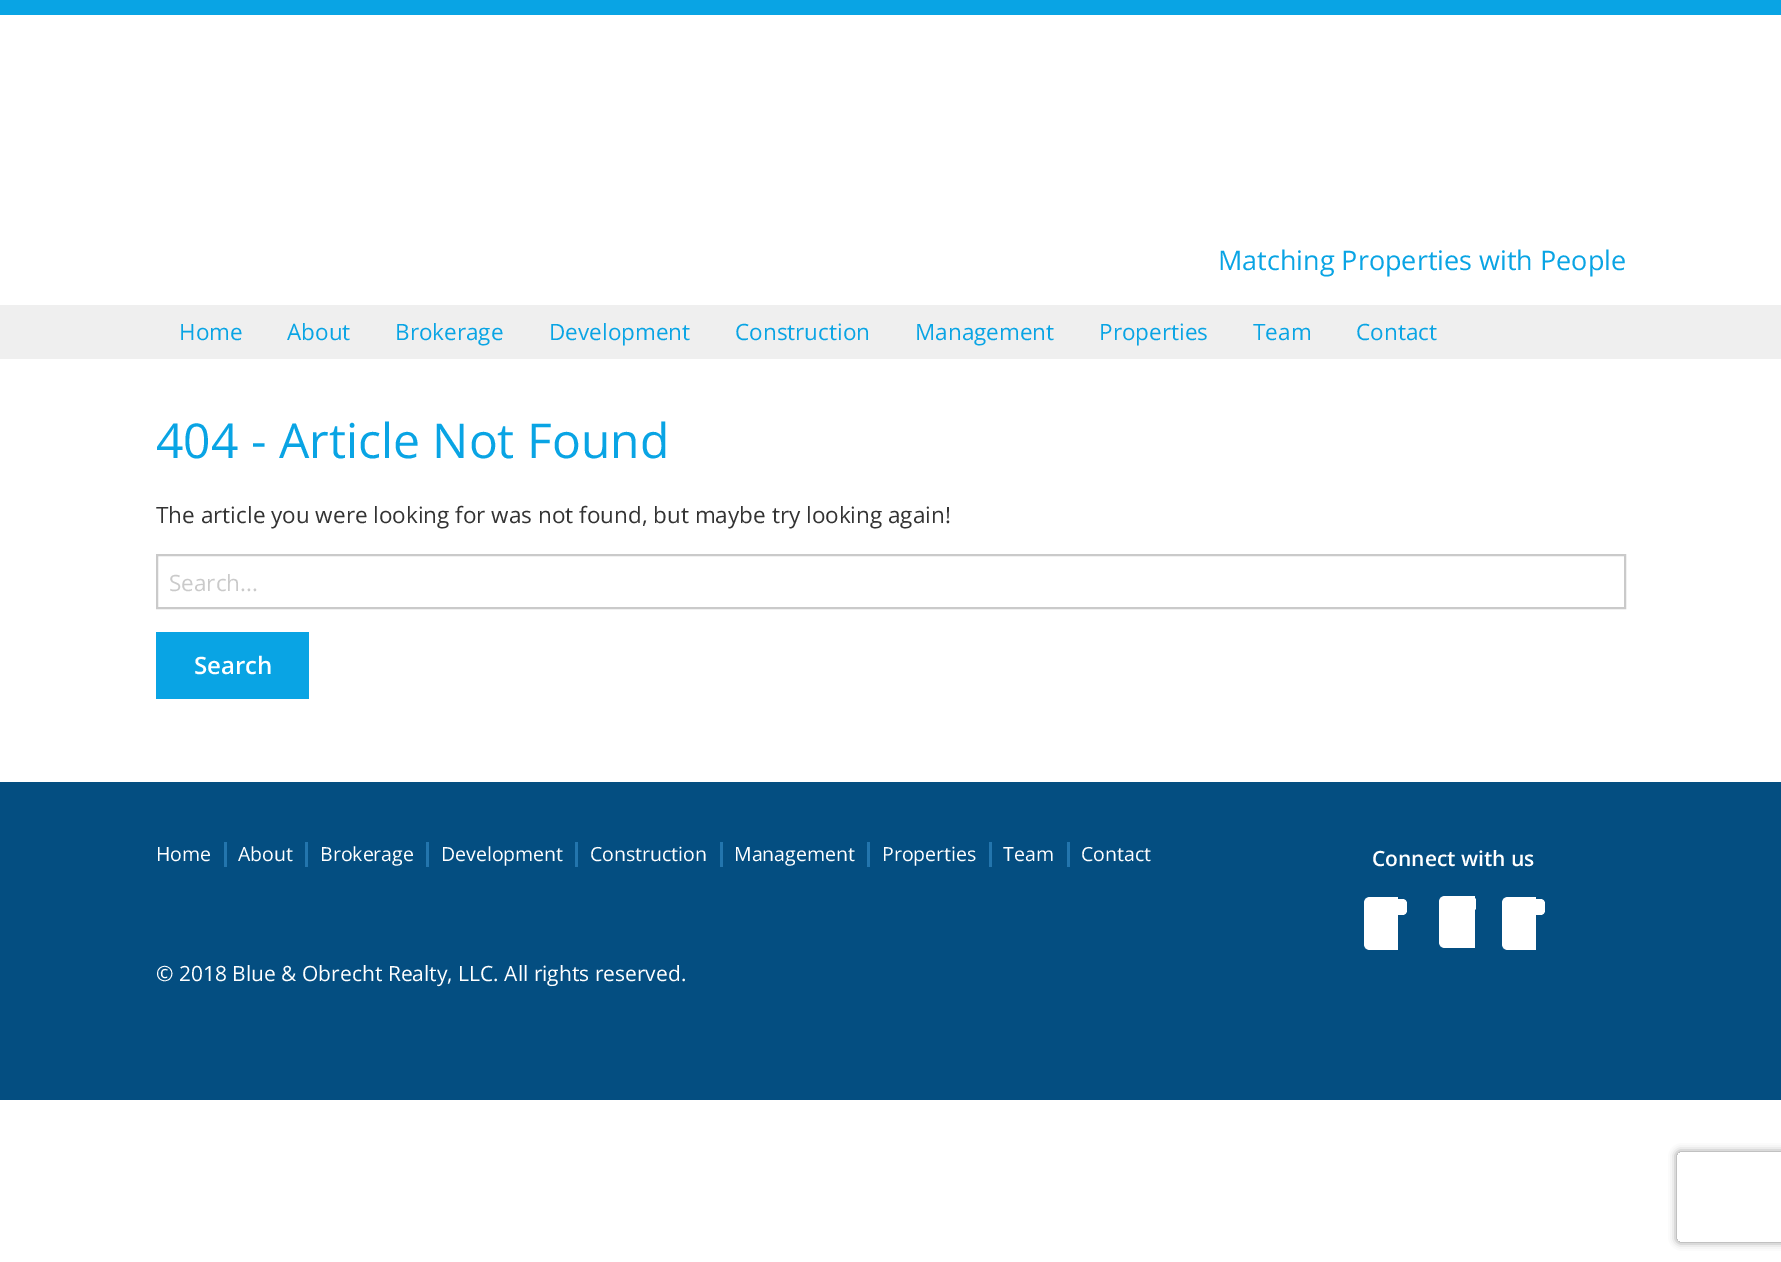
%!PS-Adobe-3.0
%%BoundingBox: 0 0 1781 1262
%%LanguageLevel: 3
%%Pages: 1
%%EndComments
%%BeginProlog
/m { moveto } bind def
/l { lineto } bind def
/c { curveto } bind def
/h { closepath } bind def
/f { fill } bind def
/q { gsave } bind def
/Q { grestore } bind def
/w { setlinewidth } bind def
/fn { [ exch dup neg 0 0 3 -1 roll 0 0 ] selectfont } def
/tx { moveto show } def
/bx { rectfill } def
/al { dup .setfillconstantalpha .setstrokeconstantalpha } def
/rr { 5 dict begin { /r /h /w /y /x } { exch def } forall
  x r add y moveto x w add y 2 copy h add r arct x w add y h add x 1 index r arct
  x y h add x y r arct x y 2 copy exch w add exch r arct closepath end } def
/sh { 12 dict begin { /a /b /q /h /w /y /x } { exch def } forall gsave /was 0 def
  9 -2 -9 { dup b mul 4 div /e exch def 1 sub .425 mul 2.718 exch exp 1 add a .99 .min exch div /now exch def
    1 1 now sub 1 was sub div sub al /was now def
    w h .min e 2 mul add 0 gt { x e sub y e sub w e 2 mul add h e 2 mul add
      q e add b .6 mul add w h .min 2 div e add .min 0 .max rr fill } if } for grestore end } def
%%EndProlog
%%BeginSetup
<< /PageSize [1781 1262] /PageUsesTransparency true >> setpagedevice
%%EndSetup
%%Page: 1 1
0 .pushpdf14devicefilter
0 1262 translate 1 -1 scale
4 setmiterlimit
1 setgray
0 0 1781 1262 bx
0.035 0.643 0.894 setrgbcolor
0 0 1781 15 bx
/OpenSans-Regular 27 fn
(Matching Properties with People) 1218 270 tx
0.937 setgray
0 305 1781 54 bx
/OpenSans-Regular 22.5 fn
0.035 0.643 0.894 setrgbcolor
(Home) 179 340 tx
(About) 287 340 tx
(Brokerage) 395 340 tx
(Development) 549 340 tx
(Construction) 735 340 tx
(Management) 915 340 tx
(Properties) 1099 340 tx
(Team) 1253 340 tx
(Contact) 1356 340 tx
/OpenSans-Regular 48 fn
(404 - Article Not Found) 156 458 tx
/OpenSans-Regular 22.5 fn
0.2 setgray
(The article you were looking for was not found, but maybe try looking again!) 156 523 tx
0.792 setgray
2 w
157 555 1468 53 rectstroke
(Search...) 169 591 tx
0.035 0.643 0.894 setrgbcolor
156 632 153 67 bx
/OpenSans-SemiBold 24 fn
1 setgray
(Search) 194 674 tx
0.016 0.306 0.506 setrgbcolor
0 782 1781 318 bx
0.137 0.459 0.678 setrgbcolor
224 842 3 25 bx
/OpenSans-Regular 19.5 fn
1 setgray
(Home) 156 861 tx
0.137 0.459 0.678 setrgbcolor
305 842 3 25 bx
1 setgray
(About) 238 861 tx
0.137 0.459 0.678 setrgbcolor
426 842 3 25 bx
1 setgray
(Brokerage) 320 861 tx
0.137 0.459 0.678 setrgbcolor
575 842 3 25 bx
1 setgray
(Development) 441 861 tx
0.137 0.459 0.678 setrgbcolor
720 842 3 25 bx
1 setgray
(Construction) 590 861 tx
0.137 0.459 0.678 setrgbcolor
867 842 3 25 bx
1 setgray
(Management) 734 861 tx
0.137 0.459 0.678 setrgbcolor
989 842 3 25 bx
1 setgray
(Properties) 882 861 tx
0.137 0.459 0.678 setrgbcolor
1067 842 3 25 bx
1 setgray
(Team) 1003 861 tx
(Contact) 1081 861 tx
/OpenSans-SemiBold 21 fn
(Connect with us) 1372 866 tx
1370 897 m 1398 897 l 1398 950 l 1370 950 l 1366.5 950 1364 947.5 1364 944 c 1364 903 l 1364 899.5 1366.5 897 1370 897 c h f
1398 899 m 1402.5 899 l 1405 899 1407 901 1407 903.5 c 1407 910.5 l 1407 913 1405 915 1402.5 915 c 1398 915 l h f
1445 896 m 1475 896 l 1475 948 l 1445 948 l 1441.5 948 1439 945.5 1439 942 c 1439 902 l 1439 898.5 1441.5 896 1445 896 c h f
1469 897 m 1472.5 897 l 1474.5 897 1476 898.5 1476 900.5 c 1476 907.5 l 1476 909.5 1474.5 911 1472.5 911 c 1469 911 l h f
1508 897 m 1536 897 l 1536 950 l 1508 950 l 1504.5 950 1502 947.5 1502 944 c 1502 903 l 1502 899.5 1504.5 897 1508 897 c h f
1536 899 m 1540.5 899 l 1543 899 1545 901 1545 903.5 c 1545 910.5 l 1545 913 1543 915 1540.5 915 c 1536 915 l h f
/OpenSans-Regular 21 fn
(© 2018 Blue & Obrecht Realty, LLC. All rights reserved.) 156 981 tx
q
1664 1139 m 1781 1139 l 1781 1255 l 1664 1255 l h 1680 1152 m 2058 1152 l 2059.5 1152 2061 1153.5 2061 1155 c 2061 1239 l 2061 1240.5 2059.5 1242 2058 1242 c 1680 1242 l 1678.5 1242 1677 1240.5 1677 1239 c 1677 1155 l 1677 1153.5 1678.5 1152 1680 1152 c h eoclip newpath
0.502 setgray
1677 1152 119 90 3 4 1 sh
Q
.poppdf14devicefilter showpage
%%EOF
